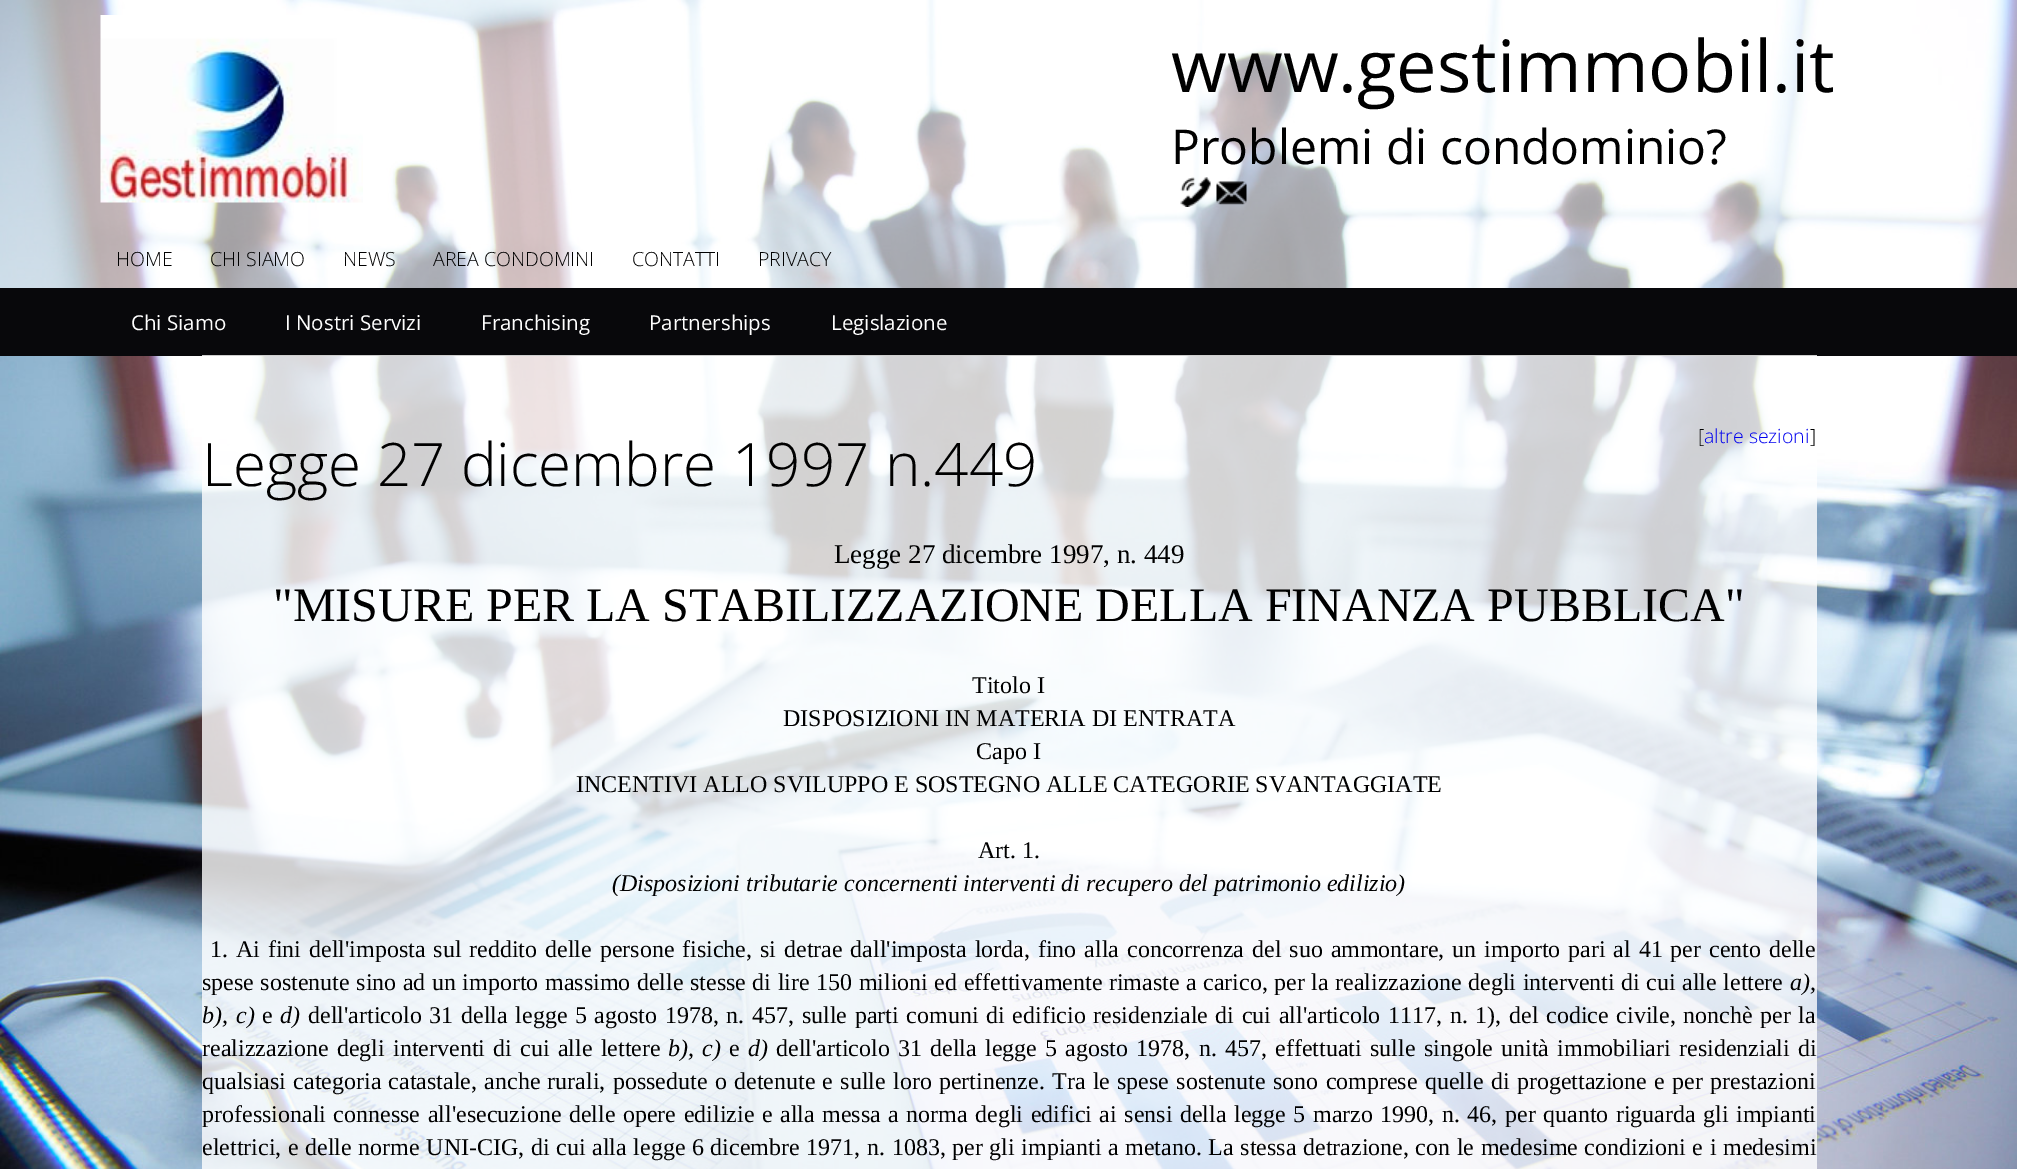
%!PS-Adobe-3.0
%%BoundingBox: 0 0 2017 1169
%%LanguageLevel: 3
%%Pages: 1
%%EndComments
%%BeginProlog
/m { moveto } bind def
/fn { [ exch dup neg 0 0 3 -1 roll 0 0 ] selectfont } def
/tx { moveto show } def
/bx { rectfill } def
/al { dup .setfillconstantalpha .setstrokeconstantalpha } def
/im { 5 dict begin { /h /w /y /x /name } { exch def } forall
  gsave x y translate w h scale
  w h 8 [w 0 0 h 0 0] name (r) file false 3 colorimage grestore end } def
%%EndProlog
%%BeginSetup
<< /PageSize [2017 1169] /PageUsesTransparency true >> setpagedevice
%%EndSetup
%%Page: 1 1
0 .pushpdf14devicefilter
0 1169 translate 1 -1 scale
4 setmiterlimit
1 setgray
0 0 2017 1169 bx
(image0.raw) 0 0 2017 1169 im
0.6 al
0 0 2017 288 bx
1 al
(image1.raw) 100 15 263 188 im
/OpenSans-Regular 72 fn
0 setgray
(www.gestimmobil.it) 1171 92 tx
/OpenSans-Regular 48 fn
(Problemi di condominio?) 1171 164 tx
(image2.raw) 1180 177 31 30 im
(image3.raw) 1216 181 31 24 im
/OpenSans-Light 19.5 fn
(HOME) 116 266 tx
(CHI SIAMO) 210 266 tx
(NEWS) 343 266 tx
(AREA CONDOMINI) 433 266 tx
(CONTATTI) 632 266 tx
(PRIVACY) 758 266 tx
0.031 0.031 0.043 setrgbcolor
0 288 2017 68 bx
/OpenSans-Regular 20.5 fn
1 setgray
(Chi Siamo) 131 330 tx
(I Nostri Servizi) 285 330 tx
(Franchising) 481 330 tx
(Partnerships) 649 330 tx
(Legislazione) 831 330 tx
0.8 al
202 355 1615 814 bx
/OpenSans-Light 19.5 fn
1 al
0 setgray
([) 1698 443 tx
0 0 0.933 setrgbcolor
(altre sezioni) 1704 443 tx
0 setgray
(]) 1810 443 tx
/OpenSans-Light 60 fn
(Legge 27 dicembre 1997 n.449) 202 486 tx
/LiberationSerif-Regular 27 fn
(Legge 27 dicembre 1997, n. 449) 834 563 tx
/LiberationSerif-Regular 48 fn
("MISURE PER LA STABILIZZAZIONE DELLA FINANZA PUBBLICA") 273 621 tx
/LiberationSerif-Regular 24 fn
(Titolo I) 972 693 tx
(DISPOSIZIONI IN MATERIA DI ENTRATA) 783 726 tx
(Capo I) 976 759 tx
(INCENTIVI ALLO SVILUPPO E SOSTEGNO ALLE CATEGORIE SVANTAGGIATE) 576 792 tx
(Art. 1.) 978 858 tx
/LiberationSerif-Italic 24 fn
(\(Disposizioni tributarie concernenti interventi di recupero del patrimonio edilizio\)) 612 891 tx
/LiberationSerif-Regular 24 fn
210 957 m 1.9 0 32 (1. Ai fini dell'imposta sul reddito delle persone fisiche, si detrae dall'imposta lorda, fino alla concorrenza del suo ammontare, un importo pari al 41 per cento delle) widthshow
202 990 m 0.5 0 32 (spese sostenute sino ad un importo massimo delle stesse di lire 150 milioni ed effettivamente rimaste a carico, per la realizzazione degli interventi di cui alle lettere) widthshow
/LiberationSerif-Italic 24 fn
(a\),) 1790 990 tx
202 1023 m 2 0 32 (b\), c\)) widthshow
/LiberationSerif-Regular 24 fn
(e) 262 1023 tx
/LiberationSerif-Italic 24 fn
(d\)) 280 1023 tx
/LiberationSerif-Regular 24 fn
308 1023 m 1.65 0 32 (dell'articolo 31 della legge 5 agosto 1978, n. 457, sulle parti comuni di edificio residenziale di cui all'articolo 1117, n. 1\), del codice civile, nonchè per la) widthshow
202 1056 m 2.25 0 32 (realizzazione degli interventi di cui alle lettere) widthshow
/LiberationSerif-Italic 24 fn
668 1056 m 2.25 0 32 (b\), c\)) widthshow
/LiberationSerif-Regular 24 fn
(e) 729 1056 tx
/LiberationSerif-Italic 24 fn
(d\)) 748 1056 tx
/LiberationSerif-Regular 24 fn
776 1056 m 2.25 0 32 (dell'articolo 31 della legge 5 agosto 1978, n. 457, effettuati sulle singole unità immobiliari residenziali di) widthshow
202 1089 m 1.25 0 32 (qualsiasi categoria catastale, anche rurali, possedute o detenute e sulle loro pertinenze. Tra le spese sostenute sono comprese quelle di progettazione e per prestazioni) widthshow
202 1122 m 1.5 0 32 (professionali connesse all'esecuzione delle opere edilizie e alla messa a norma degli edifici ai sensi della legge 5 marzo 1990, n. 46, per quanto riguarda gli impianti) widthshow
202 1155 m 0.6 0 32 (elettrici, e delle norme UNI-CIG, di cui alla legge 6 dicembre 1971, n. 1083, per gli impianti a metano. La stessa detrazione, con le medesime condizioni e i medesimi) widthshow
.poppdf14devicefilter showpage
%%EOF
